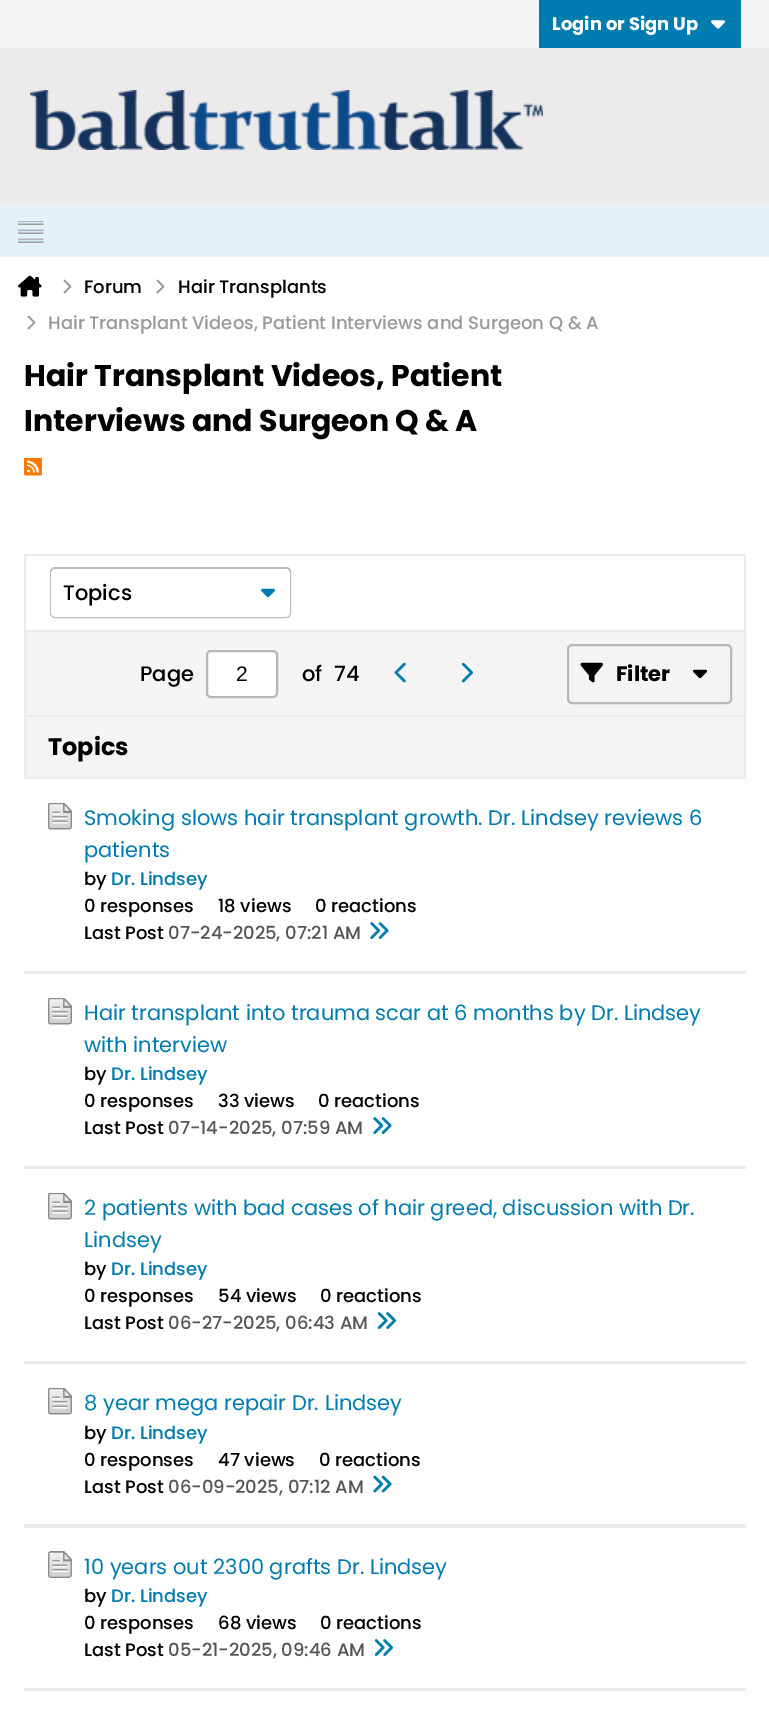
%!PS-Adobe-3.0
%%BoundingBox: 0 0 769 1713
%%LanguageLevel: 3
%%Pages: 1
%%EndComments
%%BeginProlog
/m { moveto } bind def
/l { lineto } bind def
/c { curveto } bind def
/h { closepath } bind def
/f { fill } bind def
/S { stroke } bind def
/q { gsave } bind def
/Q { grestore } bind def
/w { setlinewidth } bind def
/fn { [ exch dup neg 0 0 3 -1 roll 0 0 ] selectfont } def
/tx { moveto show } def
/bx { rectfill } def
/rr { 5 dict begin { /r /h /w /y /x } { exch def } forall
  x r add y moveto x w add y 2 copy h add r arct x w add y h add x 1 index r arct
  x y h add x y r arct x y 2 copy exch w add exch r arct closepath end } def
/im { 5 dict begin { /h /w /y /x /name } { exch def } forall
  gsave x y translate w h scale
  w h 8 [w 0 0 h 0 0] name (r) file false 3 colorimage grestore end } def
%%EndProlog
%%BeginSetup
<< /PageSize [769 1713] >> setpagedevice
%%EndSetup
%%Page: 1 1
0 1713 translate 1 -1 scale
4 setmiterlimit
0.925 0.918 0.918 setrgbcolor
0 0 769 1713 bx
0.961 0.957 0.957 setrgbcolor
0 0 769 48 bx
0 0.486 0.69 setrgbcolor
539 0 202 48 bx
/Poppins-Bold 18 fn
1 setgray
(Login or Sign Up) 552 30 tx
(image0.raw) 711 20 14 9 im
(image1.raw) 30 90 513 60 im
0.894 0.945 0.965 setrgbcolor
5 204 m 765 204 l 768 204 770 206 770 209 c 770 257 l 0 257 l 0 209 l 0 206 2 204 5 204 c h f
(image2.raw) 18 221 26 22 im
1 setgray
0 257 769 1456 bx
(image3.raw) 18 275 24 22 im
(image4.raw) 63 279 9 15 im
/Poppins-Medium 18 fn
0 setgray
(Forum) 84 293 tx
(image4.raw) 156 279 9 15 im
(Hair Transplants) 178 293 tx
(image4.raw) 27 315 9 15 im
0.6 setgray
(Hair Transplant Videos, Patient Interviews and Surgeon Q & A) 48 329 tx
/Poppins-Bold 30 fn
0 setgray
(Hair Transplant Videos, Patient) 24 386 tx
(Interviews and Surgeon Q & A) 24 431 tx
(image5.raw) 24 458 18 18 im
0.925 0.918 0.918 setrgbcolor
24 554 722 2 bx
744 554 2 76 bx
24 554 2 76 bx
0.737 0.745 0.753 setrgbcolor
2 w
51 568 239 49 4 rr S
1 setgray
51 569 239 48 5 rr f
/Poppins-Medium 21 fn
0 setgray
(Topics) 63 600 tx
(image6.raw) 261 588 14 10 im
0.961 0.957 0.957 setrgbcolor
25 631 m 745 631 l 745 716 l 25 716 l h q f Q
0.925 0.918 0.918 setrgbcolor
S
0 setgray
(Page) 140 681 tx
1 setgray
207 651 70 46 4 rr q f Q
0.718 setgray
S
/LiberationSans-Regular 21 fn
0 setgray
(2) 236 681 tx
/Poppins-Medium 21 fn
(of) 302 681 tx
(74) 334 681 tx
(image7.raw) 394 662 12 21 im
(image8.raw) 461 662 12 21 im
0.718 setgray
568 645 163 58 4 rr S
(image9.raw) 580 662 23 21 im
/Poppins-Bold 21 fn
0 setgray
(Filter) 616 681 tx
(image10.raw) 693 669 14 10 im
0.961 0.957 0.957 setrgbcolor
26 717 718 60 bx
0.925 0.918 0.918 setrgbcolor
744 717 2 60 bx
24 717 2 60 bx
/Poppins-Bold 24 fn
0 setgray
(Topics) 48 755 tx
0.925 0.918 0.918 setrgbcolor
24 777 722 2 bx
24 971 722 3 bx
(image11.raw) 48 803 24 27 im
/Poppins-Regular 21 fn
0 0.486 0.69 setrgbcolor
(Smoking slows hair transplant growth. Dr. Lindsey reviews 6) 84 825 tx
(patients) 84 857 tx
/Poppins-Medium 18 fn
0 setgray
(by) 84 885 tx
0 0.486 0.69 setrgbcolor
(Dr. Lindsey) 111 885 tx
0 setgray
(0 responses) 84 912 tx
(18 views) 218 912 tx
(0 reactions) 315 912 tx
(Last Post) 84 939 tx
0.333 setgray
(07-24-2025, 07:21 AM) 168 939 tx
(image12.raw) 370 922 19 17 im
0.925 0.918 0.918 setrgbcolor
24 1166 722 3 bx
(image13.raw) 48 998 24 27 im
/Poppins-Regular 21 fn
0 0.486 0.69 setrgbcolor
(Hair transplant into trauma scar at 6 months by Dr. Lindsey) 84 1020 tx
(with interview) 84 1052 tx
/Poppins-Medium 18 fn
0 setgray
(by) 84 1080 tx
0 0.486 0.69 setrgbcolor
(Dr. Lindsey) 111 1080 tx
0 setgray
(0 responses) 84 1107 tx
(33 views) 218 1107 tx
(0 reactions) 318 1107 tx
(Last Post) 84 1134 tx
0.333 setgray
(07-14-2025, 07:59 AM) 168 1134 tx
(image12.raw) 373 1117 19 17 im
0.925 0.918 0.918 setrgbcolor
24 1361 722 3 bx
(image11.raw) 48 1193 24 27 im
/Poppins-Regular 21 fn
0 0.486 0.69 setrgbcolor
(2 patients with bad cases of hair greed, discussion with Dr.) 84 1215 tx
(Lindsey) 84 1247 tx
/Poppins-Medium 18 fn
0 setgray
(by) 84 1275 tx
0 0.486 0.69 setrgbcolor
(Dr. Lindsey) 111 1275 tx
0 setgray
(0 responses) 84 1302 tx
(54 views) 218 1302 tx
(0 reactions) 320 1302 tx
(Last Post) 84 1329 tx
0.333 setgray
(06-27-2025, 06:43 AM) 168 1329 tx
(image14.raw) 377 1312 20 17 im
0.925 0.918 0.918 setrgbcolor
24 1524 722 4 bx
(image11.raw) 48 1388 24 27 im
/Poppins-Regular 21 fn
0 0.486 0.69 setrgbcolor
(8 year mega repair Dr. Lindsey) 84 1410 tx
/Poppins-Medium 18 fn
0 setgray
(by) 84 1439 tx
0 0.486 0.69 setrgbcolor
(Dr. Lindsey) 111 1439 tx
0 setgray
(0 responses) 84 1466 tx
(47 views) 218 1466 tx
(0 reactions) 319 1466 tx
(Last Post) 84 1493 tx
0.333 setgray
(06-09-2025, 07:12 AM) 168 1493 tx
(image15.raw) 373 1475 19 18 im
0.925 0.918 0.918 setrgbcolor
24 1688 722 3 bx
(image16.raw) 48 1551 24 27 im
/Poppins-Regular 21 fn
0 0.486 0.69 setrgbcolor
(10 years out 2300 grafts Dr. Lindsey) 84 1574 tx
/Poppins-Medium 18 fn
0 setgray
(by) 84 1602 tx
0 0.486 0.69 setrgbcolor
(Dr. Lindsey) 111 1602 tx
0 setgray
(0 responses) 84 1629 tx
(68 views) 218 1629 tx
(0 reactions) 320 1629 tx
(Last Post) 84 1656 tx
0.333 setgray
(05-21-2025, 09:46 AM) 168 1656 tx
(image14.raw) 374 1639 20 17 im
showpage
%%EOF
